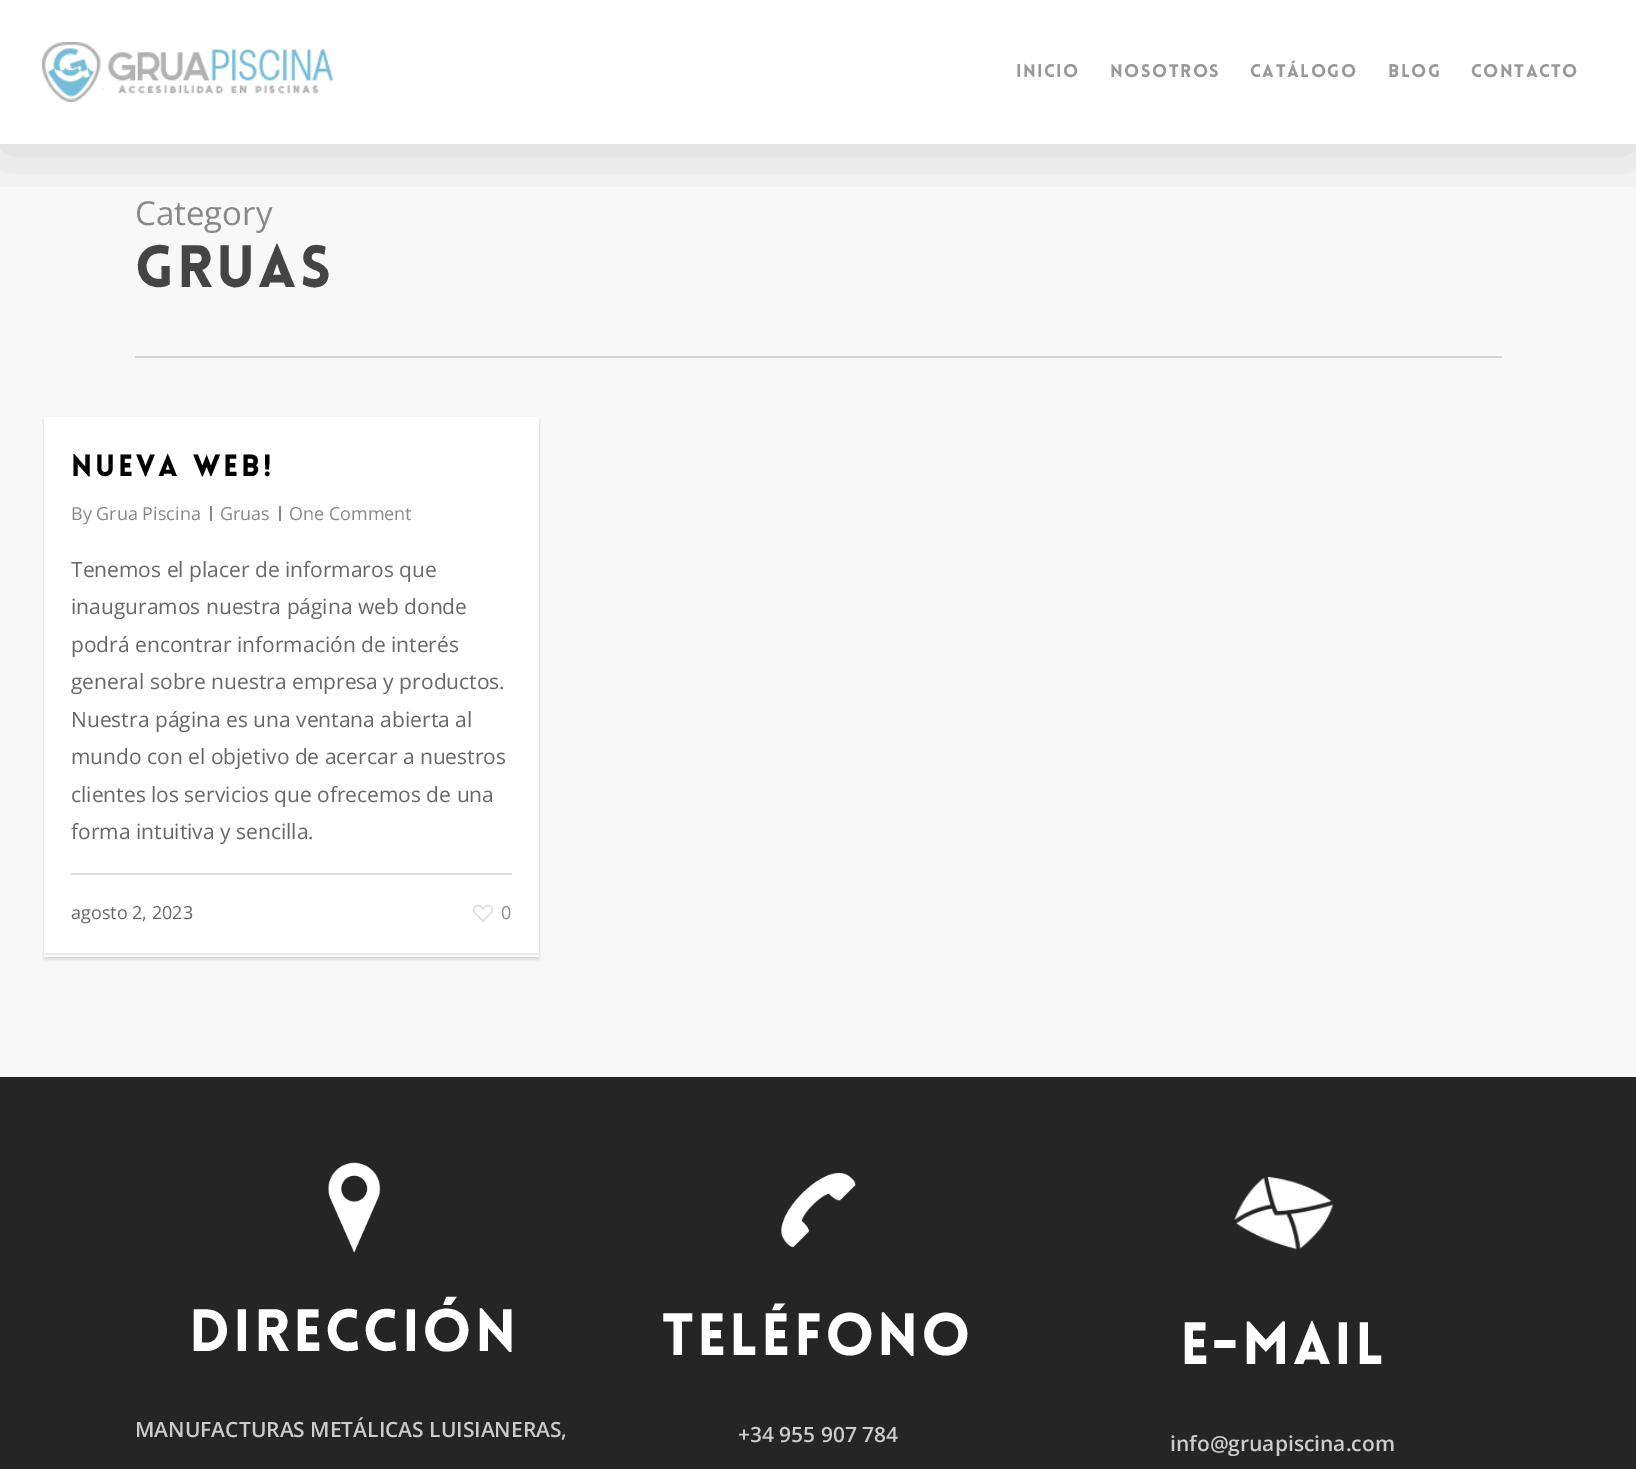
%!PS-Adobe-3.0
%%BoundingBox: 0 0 1636 1469
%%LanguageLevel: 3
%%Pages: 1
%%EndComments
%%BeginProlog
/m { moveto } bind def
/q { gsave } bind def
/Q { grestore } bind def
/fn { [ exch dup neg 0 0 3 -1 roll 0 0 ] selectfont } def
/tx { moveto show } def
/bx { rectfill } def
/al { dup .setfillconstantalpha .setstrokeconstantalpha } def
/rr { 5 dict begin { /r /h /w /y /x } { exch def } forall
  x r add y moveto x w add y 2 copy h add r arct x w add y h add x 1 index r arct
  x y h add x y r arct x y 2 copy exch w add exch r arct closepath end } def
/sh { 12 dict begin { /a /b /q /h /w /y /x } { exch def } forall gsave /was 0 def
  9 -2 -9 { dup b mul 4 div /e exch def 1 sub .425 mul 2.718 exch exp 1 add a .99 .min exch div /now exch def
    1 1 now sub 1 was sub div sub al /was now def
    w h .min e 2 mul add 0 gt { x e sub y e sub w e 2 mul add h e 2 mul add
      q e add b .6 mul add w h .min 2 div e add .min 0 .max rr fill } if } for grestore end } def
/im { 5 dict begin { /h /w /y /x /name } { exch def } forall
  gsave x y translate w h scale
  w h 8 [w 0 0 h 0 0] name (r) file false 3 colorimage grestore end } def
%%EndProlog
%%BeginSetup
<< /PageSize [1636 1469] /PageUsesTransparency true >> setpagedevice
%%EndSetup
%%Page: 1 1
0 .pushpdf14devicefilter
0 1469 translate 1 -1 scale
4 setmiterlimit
1 setgray
0 0 1636 1469 bx
0.973 setgray
0 144 1636 933 bx
q
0 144 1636 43 rectclip
0 setgray
0 5 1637 144 0 34 0.15 sh
Q
(image0.raw) 42 42 292 60 im
/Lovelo-Black 18 fn
0.6 setgray
1016 77 m 1.5 0 (Inicio) ashow
1110 77 m 1.5 0 (Nosotros) ashow
1250 77 m 1.5 0 (Catálogo) ashow
1388 77 m 1.5 0 (Blog) ashow
1471 77 m 1.5 0 (Contacto) ashow
0.827 setgray
135 356 1367 2 bx
/OpenSans-Regular 33 fn
0.533 setgray
(Category) 135 225 tx
/Lovelo-Black 58.5 fn
0.267 setgray
135 287 m 3 0 (Gruas) ashow
0 setgray
44 419 495 540 0 1.5 0.15 sh
1 setgray
44 417 495 540 bx
0.867 setgray
71 873 441 2 bx
/Lovelo-Black 30 fn
0 setgray
71 476 m 3 0 (Nueva Web!) ashow
/OpenSans-Regular 18 fn
0.533 setgray
(By Grua Piscina) 71 520 tx
210 506 2 15 bx
(Gruas) 220 520 tx
279 506 2 15 bx
(One Comment) 289 520 tx
/OpenSans-Regular 21 fn
0.404 setgray
(Tenemos el placer de informaros que) 71 577 tx
(inauguramos nuestra página web donde) 71 614 tx
(podrá encontrar información de interés) 71 652 tx
(general sobre nuestra empresa y productos.) 71 689 tx
(Nuestra página es una ventana abierta al) 71 727 tx
(mundo con el objetivo de acercar a nuestros) 71 764 tx
(clientes los servicios que ofrecemos de una) 71 802 tx
(forma intuitiva y sencilla.) 71 839 tx
/OpenSans-Regular 18 fn
(agosto 2, 2023) 71 919 tx
(image1.raw) 472 904 22 18 im
0.533 setgray
(0) 501 919 tx
0.918 setgray
44 953 495 2 bx
0.145 setgray
0 1077 1636 392 bx
(image2.raw) 328 1162 53 91 im
/Lovelo-Black 58.5 fn
1 setgray
189 1351 m 3 0 (DIRECCIÓN) ashow
/OpenSans-SemiBold 21 fn
0.8 setgray
(MANUFACTURAS METÁLICAS LUISIANERAS,) 135 1437 tx
(image3.raw) 781 1173 75 75 im
/Lovelo-Black 58.5 fn
1 setgray
662 1355 m 3 0 (Teléfono) ashow
/OpenSans-SemiBold 21 fn
0.8 setgray
(+34 955 907 784) 738 1442 tx
(image4.raw) 1234 1176 100 74 im
/Lovelo-Black 58.5 fn
1 setgray
1180 1364 m 3 0 (E-Mail) ashow
/OpenSans-SemiBold 21 fn
0.8 setgray
(info@gruapiscina.com) 1170 1451 tx
.poppdf14devicefilter showpage
%%EOF
